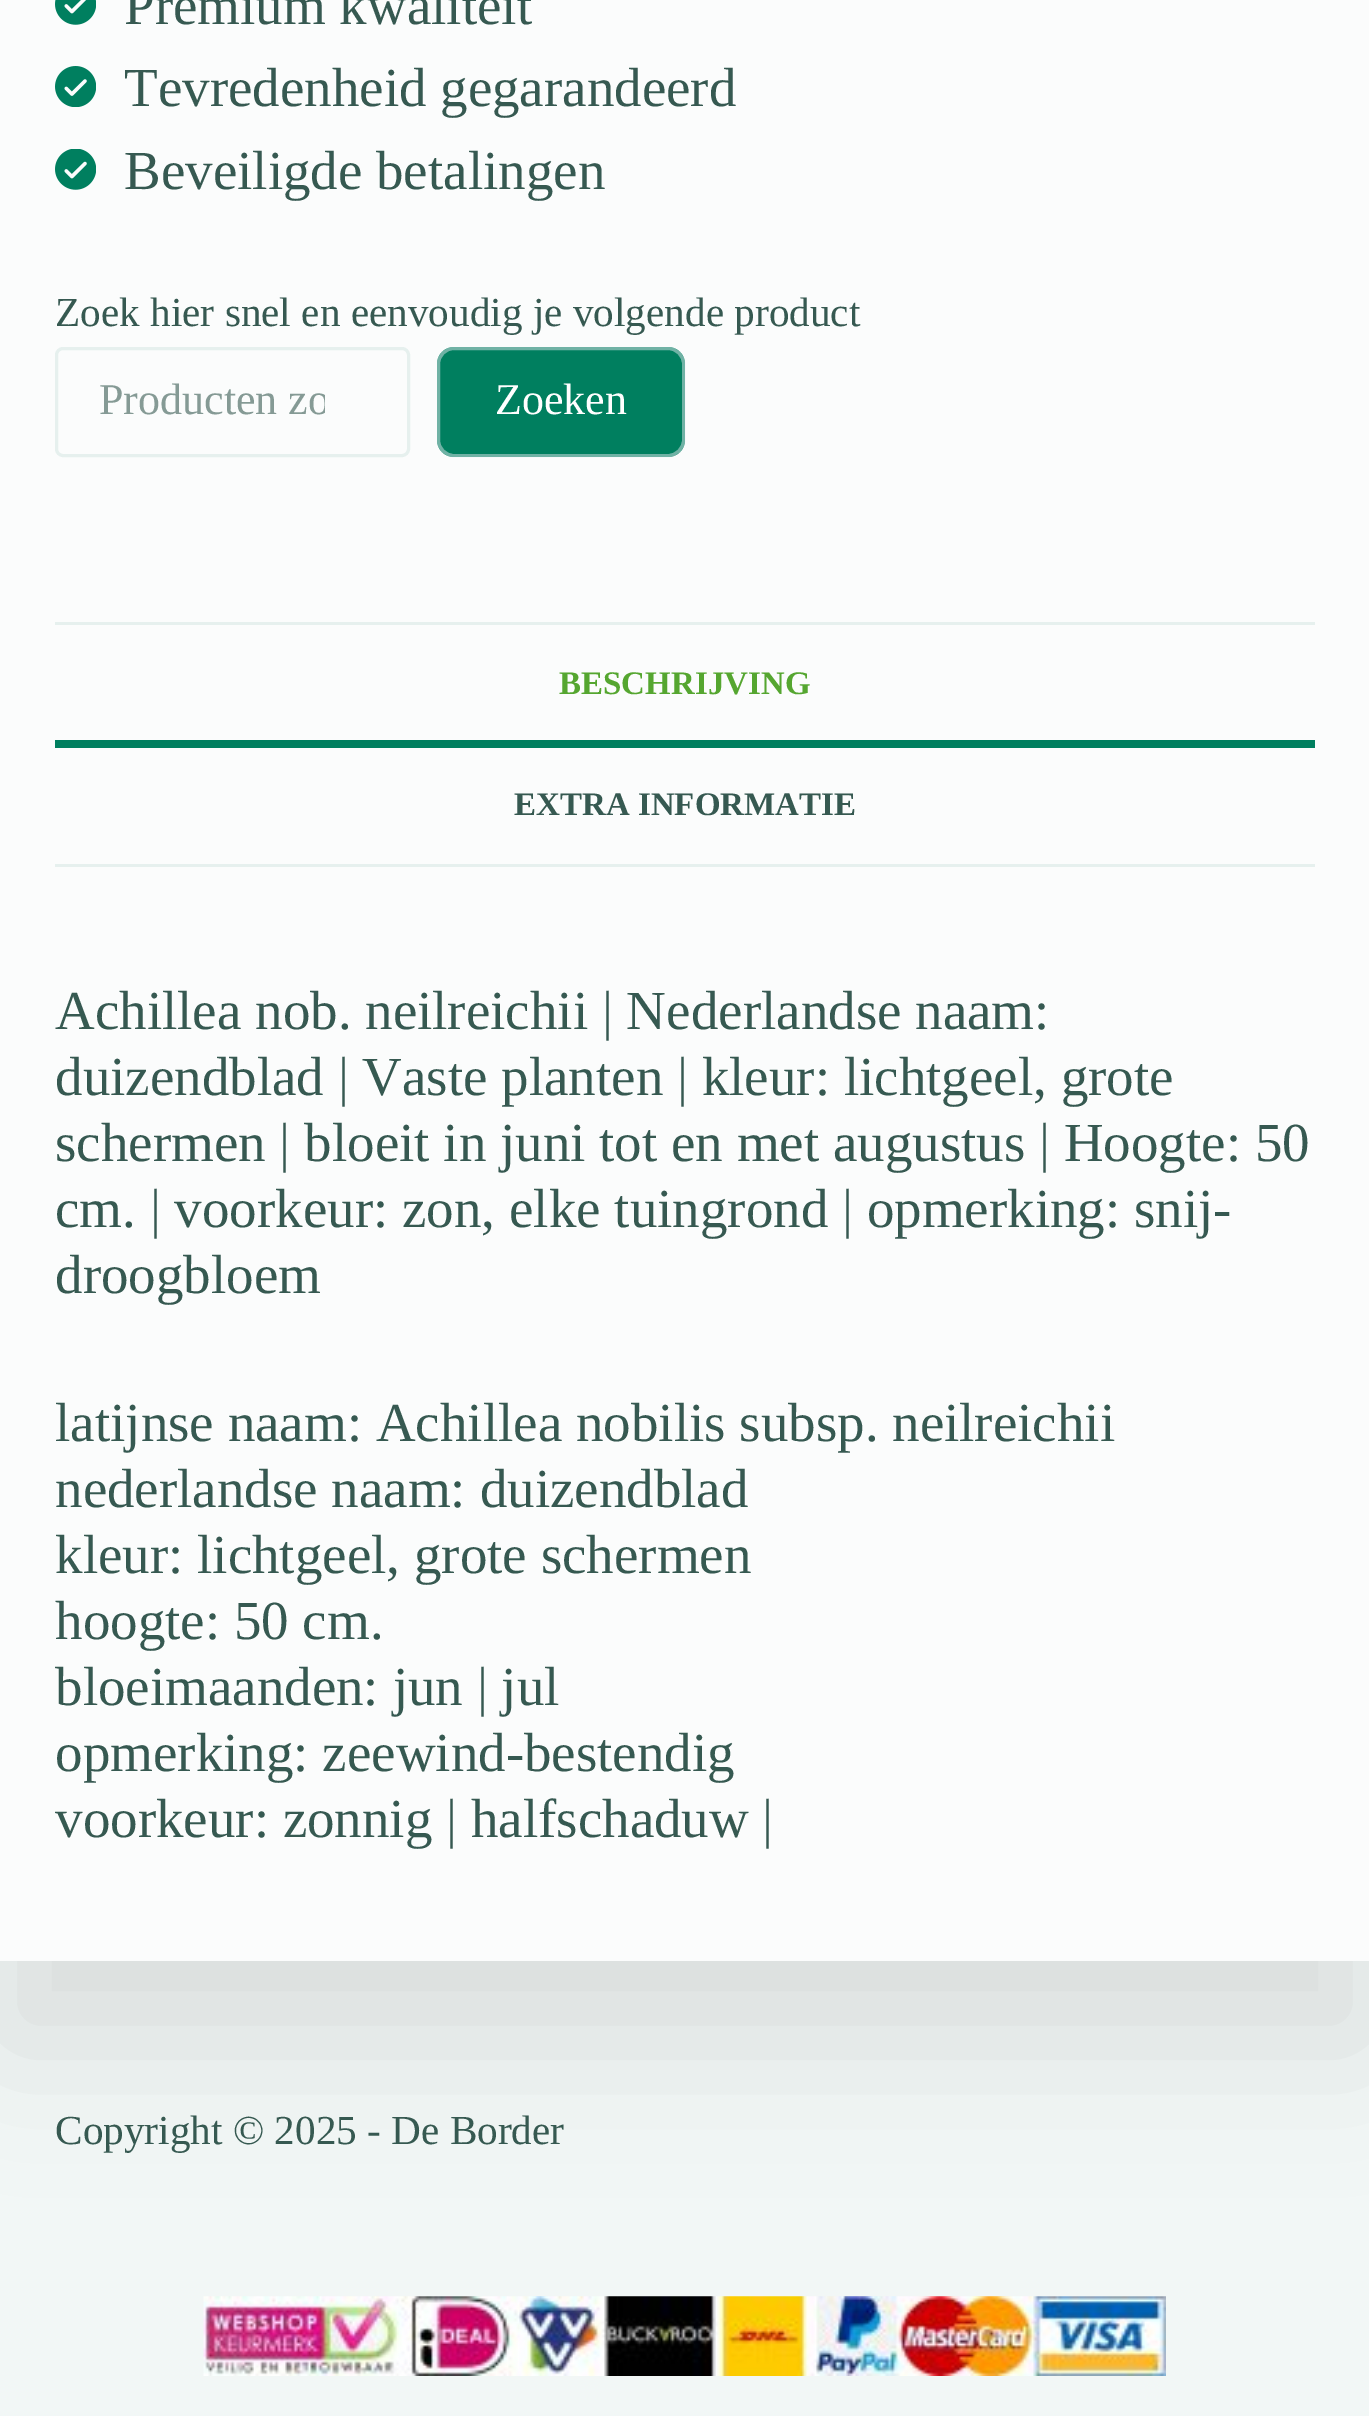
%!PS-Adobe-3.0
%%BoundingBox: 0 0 1369 2416
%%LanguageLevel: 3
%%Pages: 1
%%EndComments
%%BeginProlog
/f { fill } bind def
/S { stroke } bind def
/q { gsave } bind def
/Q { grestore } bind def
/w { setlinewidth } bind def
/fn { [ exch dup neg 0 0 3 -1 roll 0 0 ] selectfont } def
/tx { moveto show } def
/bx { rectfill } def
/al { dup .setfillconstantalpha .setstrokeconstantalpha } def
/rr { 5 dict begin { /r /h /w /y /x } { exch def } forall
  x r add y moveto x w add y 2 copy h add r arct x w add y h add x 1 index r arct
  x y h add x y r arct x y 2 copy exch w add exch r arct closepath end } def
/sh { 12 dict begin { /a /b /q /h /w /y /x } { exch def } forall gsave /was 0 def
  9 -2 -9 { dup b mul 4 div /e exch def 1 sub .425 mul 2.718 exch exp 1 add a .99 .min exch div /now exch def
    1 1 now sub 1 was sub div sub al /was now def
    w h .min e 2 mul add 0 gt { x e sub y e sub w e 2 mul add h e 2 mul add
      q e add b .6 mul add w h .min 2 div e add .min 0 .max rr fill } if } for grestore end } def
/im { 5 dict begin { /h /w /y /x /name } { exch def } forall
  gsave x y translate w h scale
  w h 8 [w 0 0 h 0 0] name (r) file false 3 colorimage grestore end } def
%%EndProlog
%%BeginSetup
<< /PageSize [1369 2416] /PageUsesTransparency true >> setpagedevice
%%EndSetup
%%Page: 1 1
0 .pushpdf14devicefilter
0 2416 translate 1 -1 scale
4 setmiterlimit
0.949 0.969 0.965 setrgbcolor
0 0 1369 2416 bx
0 setgray
0 -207 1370 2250 0 69 0.1 sh
0.984 0.988 0.988 setrgbcolor
0 0 1369 1961 bx
(image0.raw) 55 0 41 25 im
/LiberationSerif-Regular 55 fn
0.212 0.349 0.318 setrgbcolor
(Premium kwaliteit) 124 24 tx
(image1.raw) 55 66 41 41 im
(Tevredenheid gegarandeerd) 124 106 tx
(image2.raw) 55 149 41 41 im
(Beveiligde betalingen) 124 189 tx
/LiberationSerif-Regular 41.25 fn
(Zoek hier snel en eenvoudig je volgende product) 55 326 tx
0.902 0.941 0.933 setrgbcolor
3 w
56.5 348.5 352 107 6.5 rr S
q
99 377 226 49 rectclip
/LiberationSerif-Regular 44 fn
0.522 0.604 0.584 setrgbcolor
(Producten zo) 99 414 tx
Q
0 0.498 0.373 setrgbcolor
437 347 248 110 17 rr f
0.5 al
0.878 0.898 0.922 setrgbcolor
438.5 348.5 245 107 15.5 rr S
/LiberationSerif-Regular 44 fn
1 al
1 setgray
(Zoeken) 495 414 tx
0.902 0.941 0.933 setrgbcolor
55 864 1260 3 bx
55 622 1260 3 bx
/LiberationSerif-Bold 33 fn
0.333 0.651 0.188 setrgbcolor
(BESCHRIJVING) 559 694 tx
0 0.498 0.373 setrgbcolor
55 740 1260 8 bx
0.212 0.349 0.318 setrgbcolor
(EXTRA INFORMATIE) 514 815 tx
/LiberationSerif-Regular 55 fn
(Achillea nob. neilreichii | Nederlandse naam:) 55 1029 tx
(duizendblad | Vaste planten | kleur: lichtgeel, grote) 55 1095 tx
(schermen | bloeit in juni tot en met augustus | Hoogte: 50) 55 1161 tx
(cm. | voorkeur: zon, elke tuingrond | opmerking: snij-) 55 1227 tx
(droogbloem) 55 1293 tx
(latijnse naam: Achillea nobilis subsp. neilreichii) 55 1441 tx
(nederlandse naam: duizendblad) 55 1507 tx
(kleur: lichtgeel, grote schermen) 55 1573 tx
(hoogte: 50 cm.) 55 1639 tx
(bloeimaanden: jun | jul) 55 1705 tx
(opmerking: zeewind-bestendig) 55 1771 tx
(voorkeur: zonnig | halfschaduw |) 55 1837 tx
/LiberationSerif-Regular 41.25 fn
(Copyright © 2025 - De Border) 55 2144 tx
(image3.raw) 203 2296 963 80 im
.poppdf14devicefilter showpage
%%EOF
